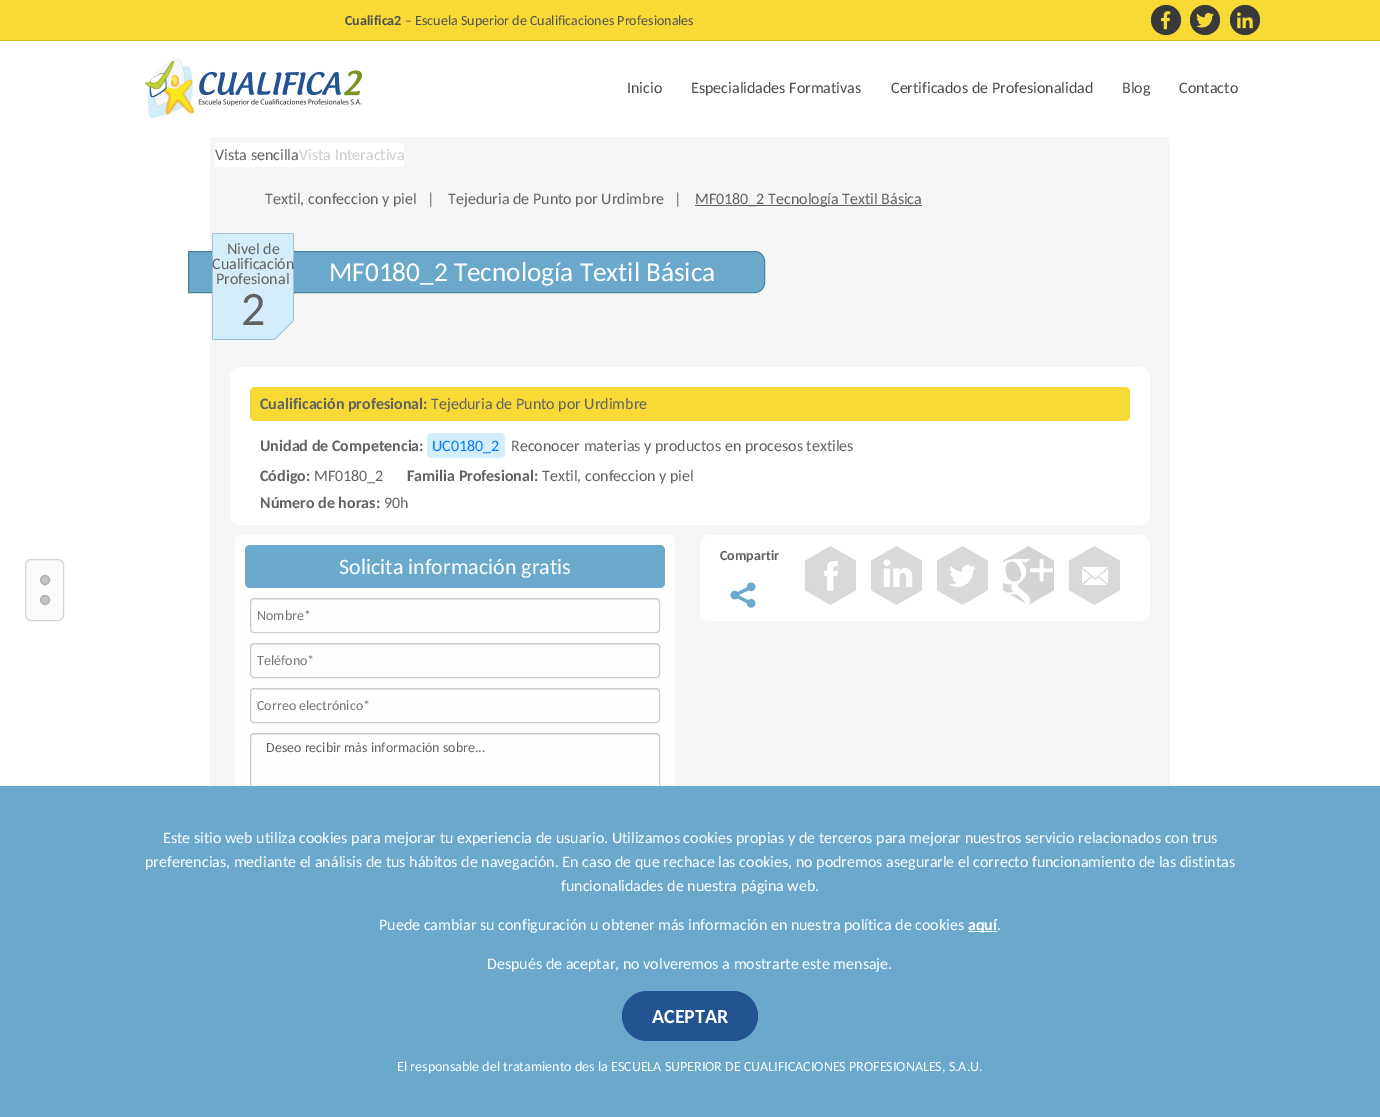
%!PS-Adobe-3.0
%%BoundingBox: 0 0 1380 1117
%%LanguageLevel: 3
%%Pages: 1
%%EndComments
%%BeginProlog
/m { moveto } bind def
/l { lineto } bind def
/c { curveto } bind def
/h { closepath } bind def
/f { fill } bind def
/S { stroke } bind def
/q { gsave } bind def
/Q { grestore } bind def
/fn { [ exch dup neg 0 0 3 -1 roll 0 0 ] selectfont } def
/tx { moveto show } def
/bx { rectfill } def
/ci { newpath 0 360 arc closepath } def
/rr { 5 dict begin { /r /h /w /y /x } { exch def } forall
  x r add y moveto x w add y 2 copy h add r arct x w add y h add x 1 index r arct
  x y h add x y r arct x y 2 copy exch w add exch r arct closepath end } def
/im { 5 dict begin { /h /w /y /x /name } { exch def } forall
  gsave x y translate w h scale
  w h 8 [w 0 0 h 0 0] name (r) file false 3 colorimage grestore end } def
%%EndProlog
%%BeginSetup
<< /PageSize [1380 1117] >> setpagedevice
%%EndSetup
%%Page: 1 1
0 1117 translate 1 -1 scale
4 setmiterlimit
1 setgray
0 0 1380 1117 bx
0.973 0.855 0.212 setrgbcolor
0 0 1380 40 bx
0.843 0.729 0.114 setrgbcolor
0 40 1380 1 bx
/Carlito-Bold 14 fn
0.322 setgray
(Cualifica2) 345 25 tx
/Carlito-Regular 14 fn
(– Escuela Superior de Cualificaciones Profesionales) 405 25 tx
0.224 setgray
1166 20 15 ci f
(image0.raw) 1161 11 10 19 im
1205 20 15 ci f
(image1.raw) 1196 12 18 16 im
1245 20 15 ci f
(image2.raw) 1237 12 16 17 im
(image3.raw) 145 59 217 59 im
/Carlito-Regular 16 fn
0.294 setgray
(Inicio) 627 93 tx
(Especialidades Formativas) 691 93 tx
(Certificados de Profesionalidad) 891 93 tx
(Blog) 1122 93 tx
(Contacto) 1179 93 tx
0.984 setgray
25.5 559.5 38 61 5.5 rr q f Q
0.847 setgray
S
0.773 setgray
45 580 4.5 ci q f Q
0.682 setgray
S
0.773 setgray
45 600 4.5 ci q f Q
0.682 setgray
S
0.965 setgray
210 137 960 649 bx
1 setgray
215 143 189 24 3 rr f
0.384 setgray
(Vista sencilla) 215 160 tx
0.8 setgray
(Vista Interactiva) 299 160 tx
0.384 setgray
(Textil, confeccion y piel) 265 204 tx
(|) 427 204 tx
(Tejeduria de Punto por Urdimbre) 448 204 tx
(|) 674 204 tx
695 205 227 1 bx
(MF0180_2 Tecnología Textil Básica) 695 204 tx
0.42 0.663 0.8 setrgbcolor
188.5 251.5 m 755 251.5 l 760 251.5 764.5 256 764.5 261 c 764.5 283 l 764.5 288 760 292.5 755 292.5 c 188.5 292.5 l h q f Q
0.302 0.506 0.624 setrgbcolor
S
(image4.raw) 212 233 82 107 im
0.384 setgray
(Nivel de) 227 254 tx
(Cualificación) 212 269 tx
(Profesional) 216 284 tx
/Carlito-Regular 48 fn
(2) 241 325 tx
/Carlito-Regular 27.25 fn
1 setgray
(MF0180_2 Tecnología Textil Básica) 329 281 tx
230 367 920 158 10 rr f
0.973 0.855 0.212 setrgbcolor
250 387 880 34 5 rr f
/Carlito-Bold 16 fn
0.384 setgray
(Cualificación profesional:) 260 409 tx
/Carlito-Regular 16 fn
(Tejeduria de Punto por Urdimbre) 431 409 tx
/Carlito-Bold 16 fn
(Unidad de Competencia:) 260 451 tx
0.831 0.929 0.98 setrgbcolor
427 433 78 25 5 rr f
/Carlito-Regular 16 fn
0 0.482 1 setrgbcolor
(UC0180_2) 432 451 tx
0.384 setgray
(Reconocer materias y productos en procesos textiles) 511 451 tx
/Carlito-Bold 16 fn
(Código:) 260 481 tx
/Carlito-Regular 16 fn
(MF0180_2) 314 481 tx
/Carlito-Bold 16 fn
(Familia Profesional:) 407 481 tx
/Carlito-Regular 16 fn
(Textil, confeccion y piel) 542 481 tx
/Carlito-Bold 16 fn
(Número de horas:) 260 508 tx
/Carlito-Regular 16 fn
(90h) 384 508 tx
1 setgray
700 535 450 86 10 rr f
/Carlito-Bold 14 fn
0.384 setgray
(Compartir) 720 560 tx
(image5.raw) 730 582 26 26 im
(image6.raw) 805 546 51 59 im
(image7.raw) 871 546 51 59 im
(image8.raw) 937 546 51 59 im
(image9.raw) 1003 546 51 59 im
(image10.raw) 1069 546 51 59 im
(image11.raw) 235 535 440 251 im
0.42 0.667 0.804 setrgbcolor
245 545 420 43 5 rr f
/Carlito-Regular 22 fn
1 setgray
(Solicita información gratis) 339 574 tx
0.922 setgray
254 600 m 656 600 l 658 600 659 601 659 603 c 659 601 658 599 656 599 c 254 599 l 252 599 251 601 251 603 c 251 601 252 600 254 600 c h f
0.8 setgray
250.5 598.5 409 34 3.5 rr S
/Carlito-Regular 14 fn
0.459 setgray
(Nombre*) 257 620 tx
0.922 setgray
254 645 m 656 645 l 658 645 659 646 659 648 c 659 646 658 644 656 644 c 254 644 l 252 644 251 646 251 648 c 251 646 252 645 254 645 c h f
0.8 setgray
250.5 643.5 409 34 3.5 rr S
0.459 setgray
(Teléfono*) 257 665 tx
0.922 setgray
254 690 m 656 690 l 658 690 659 691 659 693 c 659 691 658 689 656 689 c 254 689 l 252 689 251 691 251 693 c 251 691 252 690 254 690 c h f
0.8 setgray
250.5 688.5 409 34 3.5 rr S
0.459 setgray
(Correo electrónico*) 257 710 tx
0.922 setgray
254 735 m 656 735 l 658 735 659 736 659 738 c 659 736 658 734 656 734 c 254 734 l 252 734 251 736 251 738 c 251 736 252 735 254 735 c h f
0.8 setgray
250.5 733.5 409 99 3.5 rr S
0.384 setgray
(Deseo recibir más información sobre...) 266 752 tx
0.416 0.663 0.796 setrgbcolor
0 786 1380 331 bx
/Carlito-Regular 16 fn
1 setgray
(Este sitio web utiliza cookies para mejorar tu experiencia de usuario. Utilizamos cookies propias y de terceros para mejorar nuestros servicio relacionados con trus) 163 843 tx
(preferencias, mediante el análisis de tus hábitos de navegación. En caso de que rechace las cookies, no podremos asegurarle el correcto funcionamiento de las distintas) 145 867 tx
(funcionalidades de nuestra página web.) 561 891 tx
(Puede cambiar su configuración u obtener más información en nuestra política de cookies) 379 930 tx
968 931 29 1 bx
/Carlito-Bold 16 fn
(aquí) 968 930 tx
/Carlito-Regular 16 fn
(.) 997 930 tx
(Después de aceptar, no volveremos a mostrarte este mensaje.) 487 969 tx
0.141 0.325 0.569 setrgbcolor
622 991 136 50 25 rr f
/Carlito-Bold 20 fn
1 setgray
(ACEPTAR) 652 1023 tx
/Carlito-Regular 14 fn
(El responsable del tratamiento des la ESCUELA SUPERIOR DE CUALIFICACIONES PROFESIONALES, S.A.U.) 397 1071 tx
showpage
%%EOF
